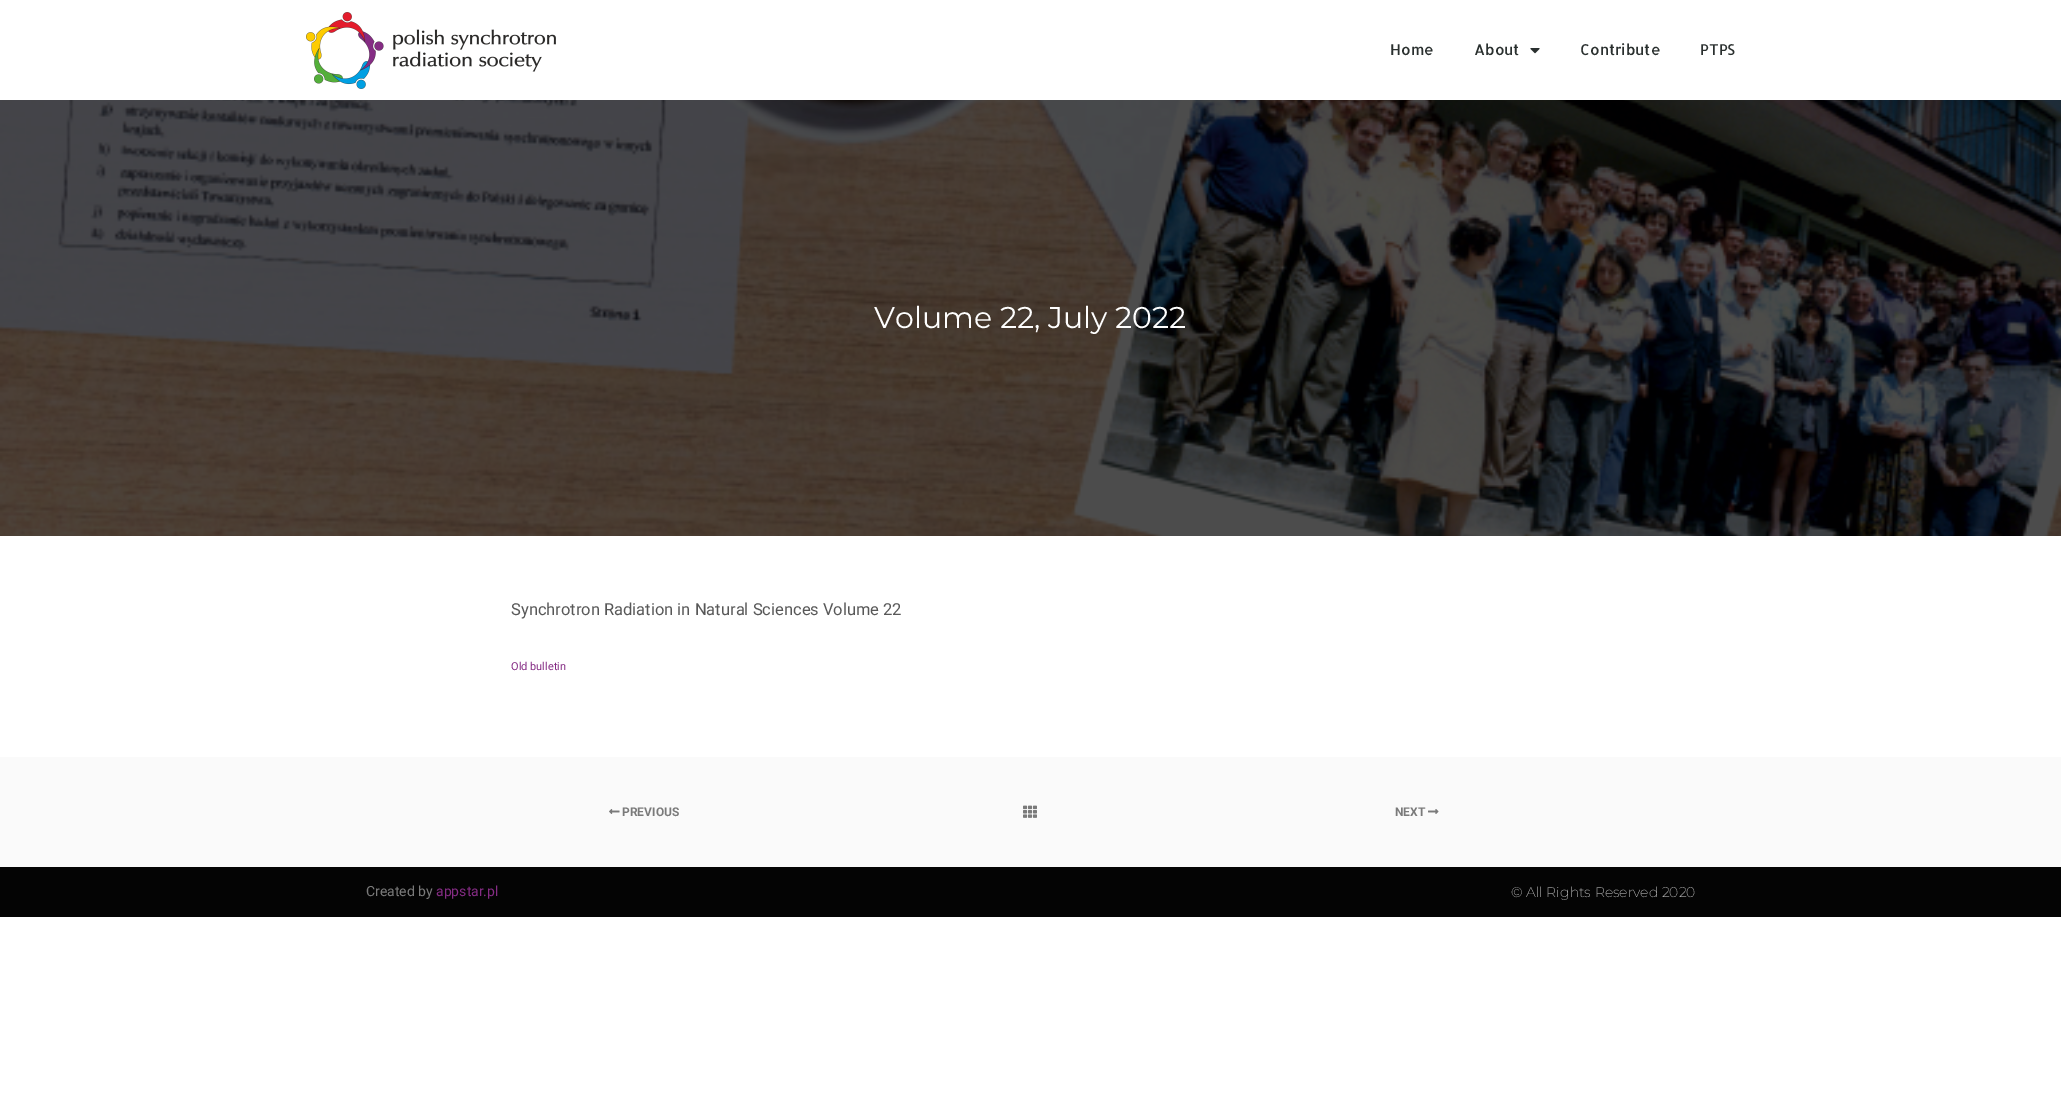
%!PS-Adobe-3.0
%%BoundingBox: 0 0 2061 1102
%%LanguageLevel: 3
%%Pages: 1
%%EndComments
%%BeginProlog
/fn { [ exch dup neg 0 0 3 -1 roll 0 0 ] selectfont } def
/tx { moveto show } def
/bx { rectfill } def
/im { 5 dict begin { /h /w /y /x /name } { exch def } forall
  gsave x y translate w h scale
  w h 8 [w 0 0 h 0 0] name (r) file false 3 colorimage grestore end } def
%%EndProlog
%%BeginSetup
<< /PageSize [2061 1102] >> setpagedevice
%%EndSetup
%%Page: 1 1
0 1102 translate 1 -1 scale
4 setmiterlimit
1 setgray
0 0 2061 1102 bx
(image0.raw) 306 12 250 77 im
/Allerta-Regular 15 fn
0.165 0.188 0.184 setrgbcolor
(Home) 1390 55 tx
(About) 1474 55 tx
(image1.raw) 1530 48 10 6 im
(Contribute) 1580 55 tx
(PTPS) 1700 55 tx
(image2.raw) 0 100 2061 436 im
/Montserrat-Regular 30 fn
1 setgray
(Volume 22, July 2022) 874 328 tx
/Roboto-Regular 16.5 fn
0.345 setgray
(Synchrotron Radiation in Natural Sciences Volume 22) 511 615 tx
/Roboto-Regular 11 fn
0.522 0.173 0.518 setrgbcolor
(Old bulletin) 511 670 tx
0.98 setgray
0 757 2061 110 bx
(image3.raw) 609 809 11 5 im
/Roboto-Bold 12 fn
0.478 setgray
(PREVIOUS) 622 816 tx
(image4.raw) 1023 805 14 13 im
(NEXT) 1395 816 tx
(image5.raw) 1428 809 11 5 im
0.016 setgray
0 867 2061 50 bx
/Roboto-Regular 14 fn
0.478 setgray
(Created by) 366 896 tx
0.522 0.173 0.518 setrgbcolor
(appstar.pl) 436 896 tx
/Montserrat-ExtraLight 14 fn
0.808 setgray
(© All Rights Reserved 2020) 1511 897 tx
showpage
%%EOF
